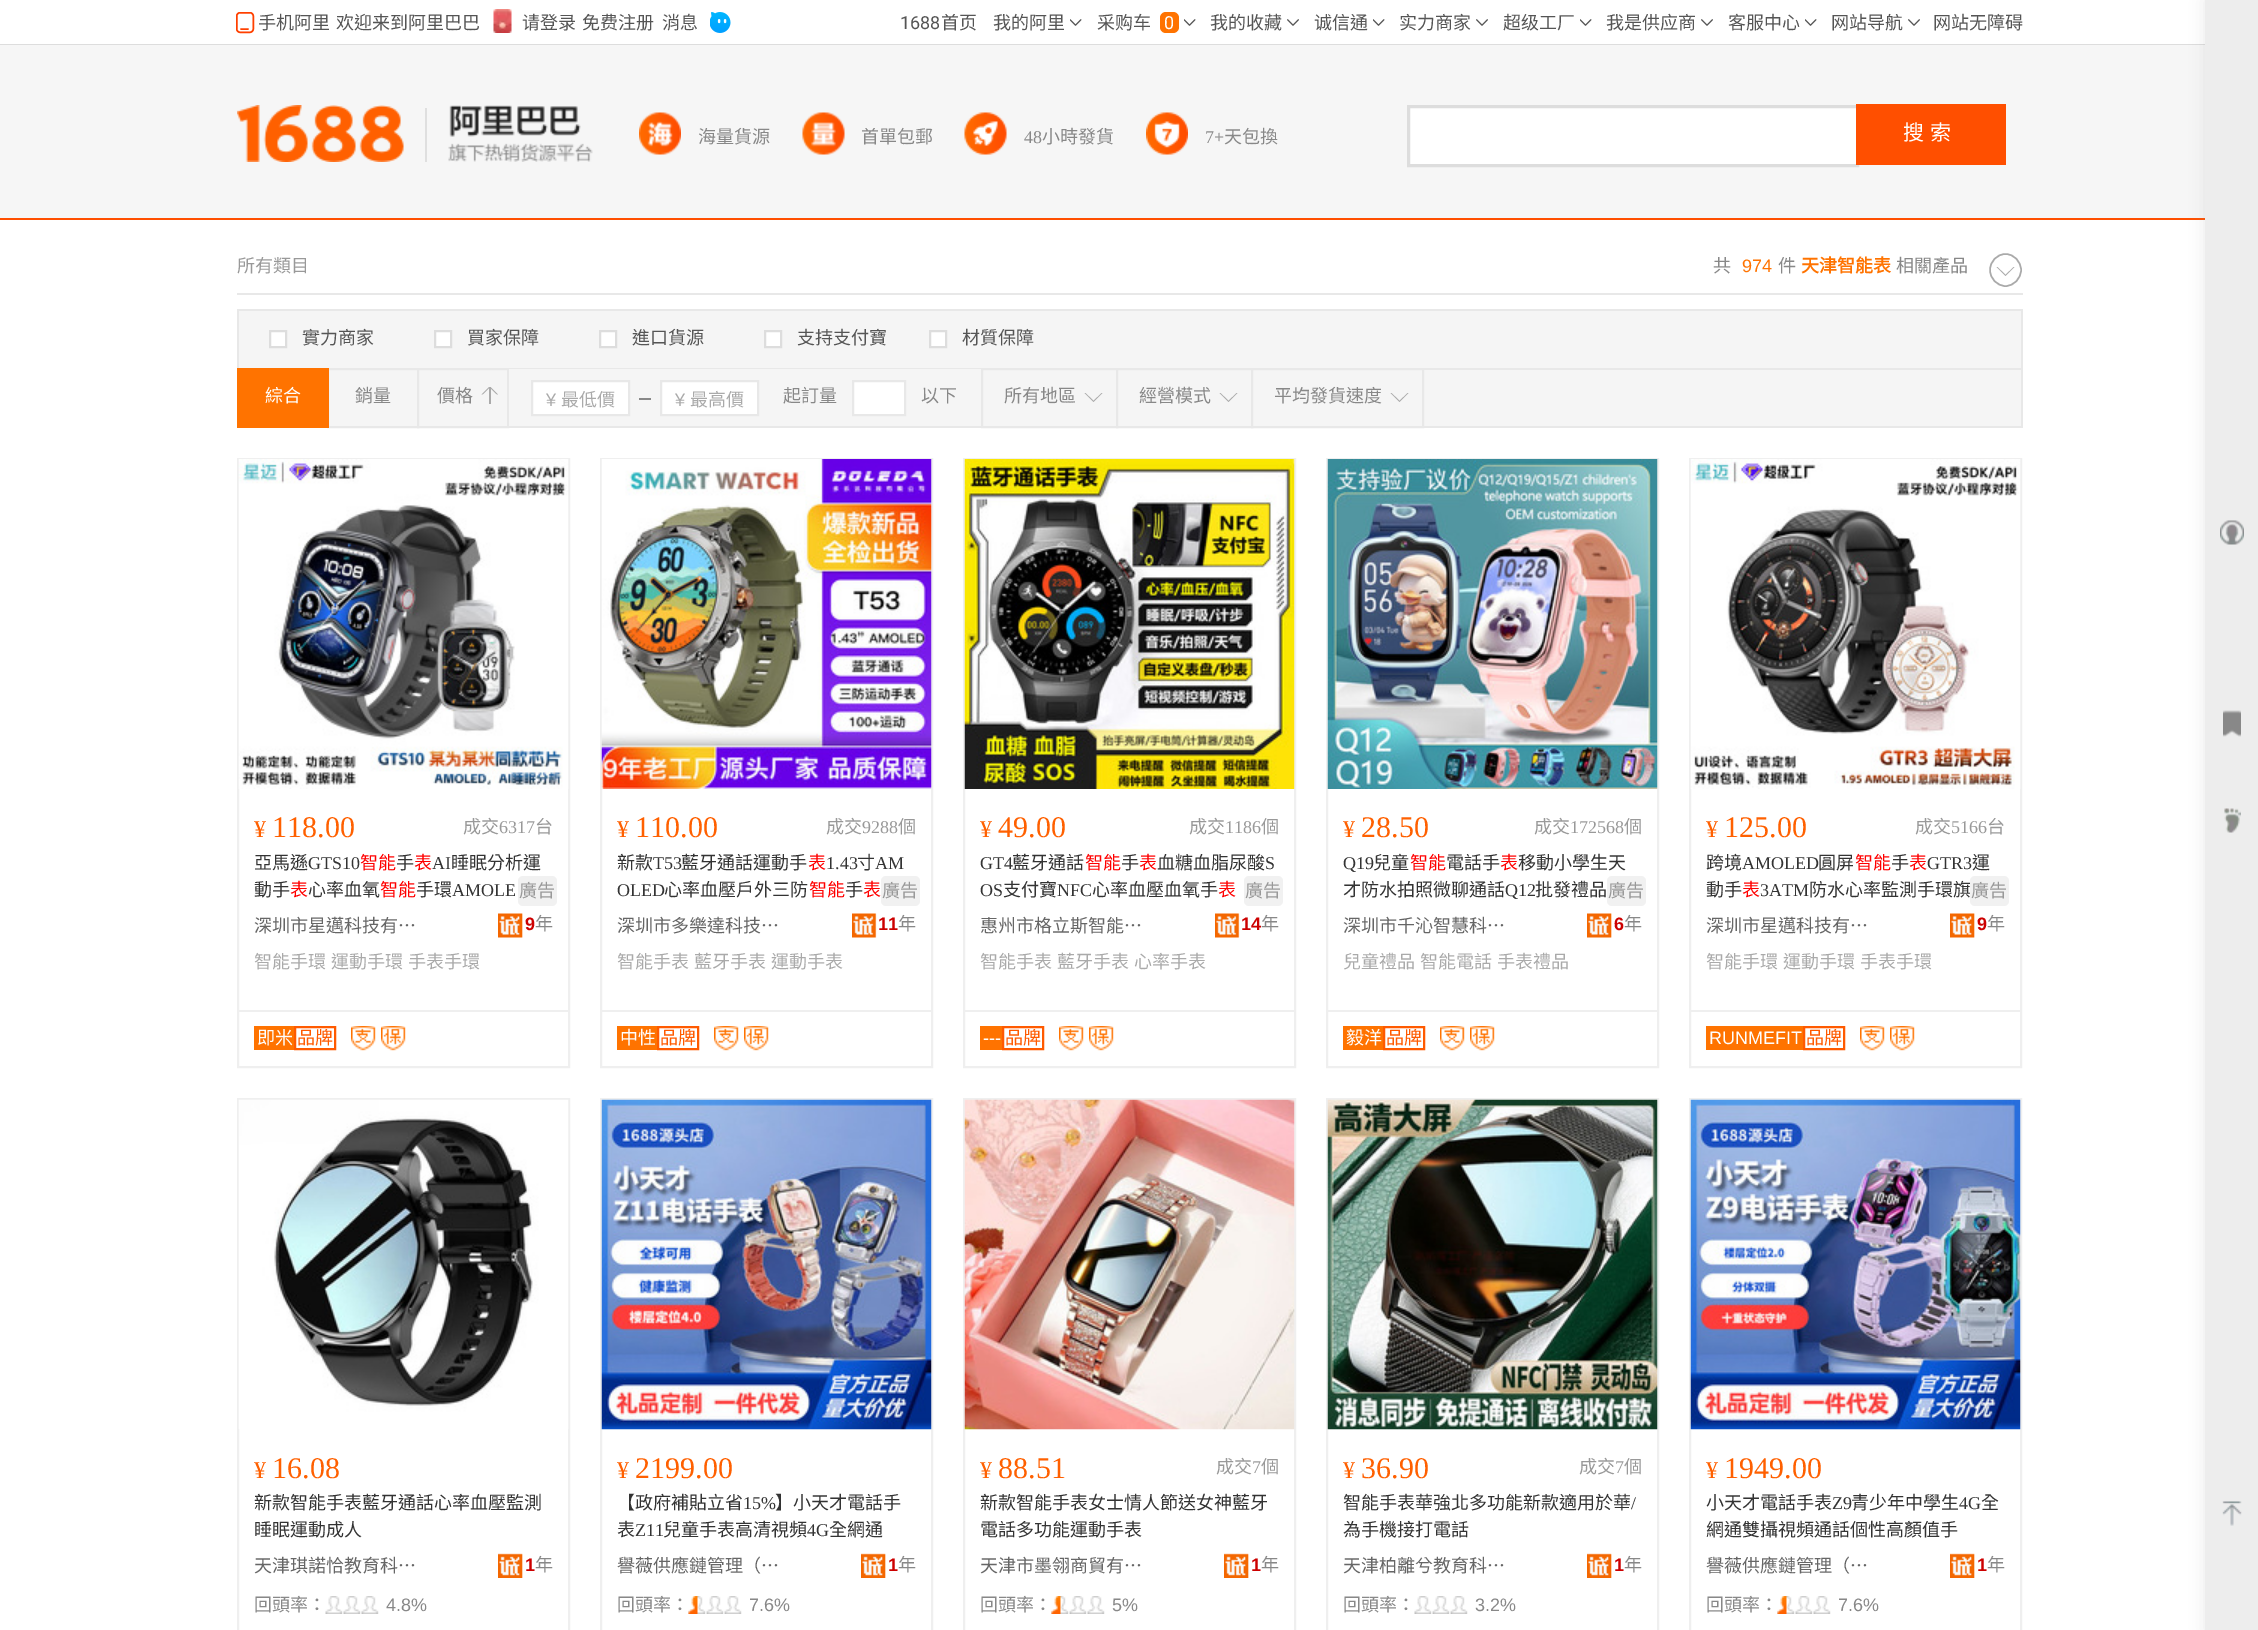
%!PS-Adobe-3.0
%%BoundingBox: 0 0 2258 1630
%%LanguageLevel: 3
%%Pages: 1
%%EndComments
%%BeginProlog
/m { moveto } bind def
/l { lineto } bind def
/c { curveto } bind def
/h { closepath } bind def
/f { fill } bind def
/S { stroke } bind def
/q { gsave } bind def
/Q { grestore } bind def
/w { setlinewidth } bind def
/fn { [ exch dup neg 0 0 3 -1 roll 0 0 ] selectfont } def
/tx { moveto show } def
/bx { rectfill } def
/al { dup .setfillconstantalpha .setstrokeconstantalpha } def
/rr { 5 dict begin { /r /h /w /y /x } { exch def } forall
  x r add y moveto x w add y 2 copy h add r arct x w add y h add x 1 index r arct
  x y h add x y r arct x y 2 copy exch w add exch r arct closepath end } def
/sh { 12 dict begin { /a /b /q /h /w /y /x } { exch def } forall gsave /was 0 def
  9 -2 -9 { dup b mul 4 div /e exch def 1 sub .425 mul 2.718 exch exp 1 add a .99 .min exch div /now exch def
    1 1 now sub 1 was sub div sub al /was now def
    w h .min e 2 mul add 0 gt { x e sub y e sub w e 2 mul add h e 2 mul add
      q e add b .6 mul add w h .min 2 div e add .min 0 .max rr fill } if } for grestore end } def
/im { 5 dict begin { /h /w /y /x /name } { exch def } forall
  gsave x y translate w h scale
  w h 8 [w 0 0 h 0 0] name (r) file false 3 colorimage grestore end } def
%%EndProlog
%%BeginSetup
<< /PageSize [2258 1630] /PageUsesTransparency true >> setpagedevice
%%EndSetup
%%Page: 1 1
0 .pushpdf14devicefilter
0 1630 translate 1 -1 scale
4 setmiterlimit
1 setgray
0 0 2258 1630 bx
0.867 setgray
0 44 2205 1 bx
1 0.251 0 setrgbcolor
1.5 w
236.75 12.75 16.5 19.5 3.25 rr S
/NotoSansCJKTC-Regular 18 fn
0.333 setgray
(手机阿里) 258 29 tx
1 0.251 0 setrgbcolor
1 setlinecap
1 setlinejoin
241 29 m 248 29 l S
0.333 setgray
(欢迎来到阿里巴巴) 336 29 tx
(image0.raw) 493 9 19 24 im
(请登录) 522 29 tx
(免费注册) 582 29 tx
(消息) 662 29 tx
(image1.raw) 710 12 21 21 im
/Roboto-Regular 18 fn
(1688) 900 29 tx
/NotoSansCJKTC-Regular 18 fn
(首页) 941 29 tx
(我的阿里) 993 29 tx
(image2.raw) 1070 19 12 7 im
(采购车) 1097 29 tx
1 0.451 0 setrgbcolor
1160 12 19 21 6 rr f
/Roboto-Regular 18 fn
1 setgray
(0) 1164 29 tx
(image2.raw) 1184 19 12 7 im
/NotoSansCJKTC-Regular 18 fn
0.333 setgray
(我的收藏) 1210 29 tx
(image3.raw) 1287 19 12 7 im
(诚信通) 1314 29 tx
(image2.raw) 1373 19 12 7 im
(实力商家) 1399 29 tx
(image3.raw) 1476 19 12 7 im
(超级工厂) 1503 29 tx
(image2.raw) 1580 19 12 7 im
(我是供应商) 1606 29 tx
(image3.raw) 1701 19 12 7 im
(客服中心) 1728 29 tx
(image2.raw) 1805 19 12 7 im
(网站导航) 1831 29 tx
(image3.raw) 1908 19 12 7 im
(网站无障碍) 1933 29 tx
0.965 setgray
0 45 2205 173 bx
1 0.31 0 setrgbcolor
0 218 2205 2 bx
(image4.raw) 237 105 167 57 im
0.875 setgray
425 108 2 54 bx
(image5.raw) 448 105 145 57 im
(image6.raw) 639 112 42 43 im
0.533 setgray
(海量貨源) 698 143 tx
(image7.raw) 802 112 43 43 im
(首單包郵) 861 143 tx
(image8.raw) 964 112 43 43 im
/LiberationSerif-Regular 18 fn
(48) 1024 143 tx
/NotoSansCJKTC-Regular 18 fn
(小時發貨) 1042 143 tx
(image9.raw) 1146 112 42 43 im
/LiberationSerif-Regular 18 fn
(7+) 1205 143 tx
/NotoSansCJKTC-Regular 18 fn
(天包換) 1224 143 tx
1 setgray
1408.5 106.5 m 1857.5 106.5 l 1857.5 165.5 l 1408.5 165.5 l h q f Q
0.867 setgray
3 w
0 setlinecap
0 setlinejoin
S
1 0.31 0 setrgbcolor
1856 104 150 61 bx
/NotoSansCJKTC-Regular 21 fn
1 setgray
1903 140 m 6 0 (搜索) ashow
0.6 setgray
2205 0 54 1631 0 7.5 0.2 sh
0.929 setgray
2205 0 53 1630 bx
(image10.raw) 2220 520 24 25 im
(image11.raw) 2223 710 18 27 im
(image12.raw) 2224 808 17 25 im
(image13.raw) 2222 1501 20 25 im
0.667 setgray
1.5 w
2005.5 286 m 1997 286 1990 278.5 1990 270 c 1990 261.5 1997 254 2005.5 254 c 2014 254 2021 261.5 2021 270 c 2021 278.5 2014 286 2005.5 286 c h S
1996.5 267 m 2014.5 267 l 2005.5 276 l h f
q
1997 267 18 9 rectclip
1 setgray
1996.5 265.5 m 2014.5 265.5 l 2005.5 274.5 l h f
Q
0.91 setgray
237 293 1786 2 bx
/NotoSansCJKTC-Regular 18 fn
0.6 setgray
(所有類目) 237 272 tx
0.533 setgray
(共) 1713 272 tx
/LiberationSans-Regular 18 fn
1 0.451 0 setrgbcolor
(974) 1742 272 tx
/NotoSansCJKTC-Regular 18 fn
0.533 setgray
(件) 1778 272 tx
/NotoSansCJKTC-Bold 18 fn
1 0.451 0 setrgbcolor
(天津智能表) 1801 272 tx
/NotoSansCJKTC-Regular 18 fn
0.533 setgray
(相關產品) 1896 272 tx
0.961 setgray
239 311 1782 57 bx
0.91 setgray
237 309 1785 2 bx
2021 309 2 59 bx
237 309 2 59 bx
1 setgray
270 331 m 286 331 l 286 347 l 270 347 l h q f Q
0.867 setgray
2 w
S
0.333 setgray
(實力商家) 302 344 tx
1 setgray
435 331 m 451 331 l 451 347 l 435 347 l h q f Q
0.867 setgray
S
0.333 setgray
(買家保障) 467 344 tx
1 setgray
600 331 m 616 331 l 616 347 l 600 347 l h q f Q
0.867 setgray
S
0.333 setgray
(進口貨源) 632 344 tx
1 setgray
765 331 m 781 331 l 781 347 l 765 347 l h q f Q
0.867 setgray
S
0.333 setgray
(支持支付寶) 797 344 tx
1 setgray
930 331 m 946 331 l 946 347 l 930 347 l h q f Q
0.867 setgray
S
0.333 setgray
(材質保障) 962 344 tx
0.961 setgray
1424 370 597 56 bx
0.91 setgray
509 368 1513 2 bx
2021 368 2 60 bx
509 426 1513 2 bx
0.961 setgray
328 369 m 418 369 l 418 427 l 328 427 l h q f Q
0.91 setgray
S
1 0.451 0 setrgbcolor
237 368 92 60 bx
1 setgray
(綜合) 265 402 tx
0.533 setgray
(銷量) 355 402 tx
0.961 setgray
418 369 m 508 369 l 508 427 l 418 427 l h q f Q
0.91 setgray
S
0.533 setgray
(價格) 437 402 tx
0.667 setgray
498 394.5 m 481.5 394.5 l 489 387 l 490.5 387 l h f
0.961 setgray
498 396 m 481.5 396 l 489 388.5 l 490.5 388.5 l h f
0.667 setgray
489 387 2 17 bx
0.961 setgray
509 369 472 57 bx
1 setgray
532 381 m 629 381 l 629 415 l 532 415 l h q f Q
0.91 setgray
S
/LiberationSans-Regular 18 fn
0.667 setgray
(¥) 546 406 tx
/NotoSansCJKTC-Regular 18 fn
(最低價) 561 406 tx
0.533 setgray
639 398 12 2 bx
1 setgray
661 381 m 758 381 l 758 415 l 661 415 l h q f Q
0.91 setgray
S
/LiberationSans-Regular 18 fn
0.667 setgray
(¥) 675 406 tx
/NotoSansCJKTC-Regular 18 fn
(最高價) 690 406 tx
0.533 setgray
(起訂量) 783 402 tx
1 setgray
853 381 m 905 381 l 905 415 l 853 415 l h q f Q
0.91 setgray
S
0.533 setgray
(以下) 921 402 tx
0.961 setgray
982 369 m 1117 369 l 1117 427 l 982 427 l h q f Q
0.91 setgray
S
0.533 setgray
(所有地區) 1004 402 tx
0.667 setgray
1084.5 393 m 1102.5 393 l 1093.5 402 l h f
q
1085 393 18 9 rectclip
0.961 setgray
1084.5 391.5 m 1102.5 391.5 l 1093.5 400.5 l h f
Q
0.961 setgray
1117 369 m 1252 369 l 1252 427 l 1117 427 l h q f Q
0.91 setgray
S
0.533 setgray
(經營模式) 1139 402 tx
0.667 setgray
1219.5 393 m 1237.5 393 l 1228.5 402 l h f
q
1220 393 18 9 rectclip
0.961 setgray
1219.5 391.5 m 1237.5 391.5 l 1228.5 400.5 l h f
Q
0.961 setgray
1252 369 m 1423 369 l 1423 427 l 1252 427 l h q f Q
0.91 setgray
S
0.533 setgray
(平均發貨速度) 1274 402 tx
0.667 setgray
1390.5 393 m 1408.5 393 l 1399.5 402 l h f
q
1391 393 18 9 rectclip
0.961 setgray
1390.5 391.5 m 1408.5 391.5 l 1399.5 400.5 l h f
Q
0.937 setgray
238 459 331 608 rectstroke
(image14.raw) 238 459 331 330 im
/LiberationSerif-Regular 24 fn
1 0.376 0 setrgbcolor
(¥) 254 837 tx
/LiberationSerif-Regular 30 fn
(118.00) 272 837 tx
/NotoSansCJKTC-Regular 18 fn
0.6 setgray
(成交) 463 833 tx
/LiberationSerif-Regular 18 fn
(6317) 499 833 tx
/NotoSansCJKTC-Regular 18 fn
(台) 535 833 tx
0.2 setgray
(亞馬遜) 254 869 tx
/LiberationSerif-Regular 18 fn
(GTS10) 308 869 tx
/NotoSansCJKTC-Regular 18 fn
1 0 0 setrgbcolor
(智能) 360 869 tx
0.2 setgray
(手) 396 869 tx
1 0 0 setrgbcolor
(表) 414 869 tx
/LiberationSerif-Regular 18 fn
0.2 setgray
(AI) 432 869 tx
/NotoSansCJKTC-Regular 18 fn
(睡眠分析運) 451 869 tx
(動手) 254 896 tx
1 0 0 setrgbcolor
(表) 290 896 tx
0.2 setgray
(心率血氧) 308 896 tx
1 0 0 setrgbcolor
(智能) 380 896 tx
0.2 setgray
(手環) 416 896 tx
/LiberationSerif-Regular 18 fn
(AMOLE) 452 896 tx
0.945 setgray
518 876 39 30 5 rr f
/NotoSansCJKTC-Regular 18 fn
0.6 setgray
(廣告) 519 897 tx
0.4 setgray
(深圳市星邁科技有…) 254 932 tx
(image15.raw) 498 913 25 25 im
/LiberationSans-Bold 18 fn
0.8 0 0 setrgbcolor
(9) 525 930 tx
/NotoSansCJKTC-Regular 18 fn
0.533 setgray
(年) 535 930 tx
0.667 setgray
(智能手環) 254 968 tx
(運動手環) 331 968 tx
(手表手環) 408 968 tx
0.937 setgray
239 1010 330 2 bx
1 0.451 0 setrgbcolor
254 1026 40 24 bx
1 setgray
(即米) 257 1044 tx
1 0.353 0 setrgbcolor
295 1027 40 22 rectstroke
(品牌) 297 1044 tx
(image16.raw) 351 1026 25 25 im
(image17.raw) 381 1026 25 25 im
0.937 setgray
601 459 331 608 rectstroke
(image18.raw) 601 459 331 330 im
/LiberationSerif-Regular 24 fn
1 0.376 0 setrgbcolor
(¥) 617 837 tx
/LiberationSerif-Regular 30 fn
(110.00) 635 837 tx
/NotoSansCJKTC-Regular 18 fn
0.6 setgray
(成交) 826 833 tx
/LiberationSerif-Regular 18 fn
(9288) 862 833 tx
/NotoSansCJKTC-Regular 18 fn
(個) 898 833 tx
0.2 setgray
(新款) 617 869 tx
/LiberationSerif-Regular 18 fn
(T53) 653 869 tx
/NotoSansCJKTC-Regular 18 fn
(藍牙通話運動手) 681 869 tx
1 0 0 setrgbcolor
(表) 808 869 tx
/LiberationSerif-Regular 18 fn
0.2 setgray
(1.43) 826 869 tx
/NotoSansCJKTC-Regular 18 fn
(寸) 857 869 tx
/LiberationSerif-Regular 18 fn
(AM) 875 869 tx
(OLED) 617 896 tx
/NotoSansCJKTC-Regular 18 fn
(心率血壓戶外三防) 664 896 tx
1 0 0 setrgbcolor
(智能) 809 896 tx
0.2 setgray
(手) 845 896 tx
1 0 0 setrgbcolor
(表) 863 896 tx
0.945 setgray
881 876 39 30 5 rr f
0.6 setgray
(廣告) 882 897 tx
0.4 setgray
(深圳市多樂達科技…) 617 932 tx
(image19.raw) 852 913 25 25 im
/LiberationSans-Bold 18 fn
0.8 0 0 setrgbcolor
(11) 878 930 tx
/NotoSansCJKTC-Regular 18 fn
0.533 setgray
(年) 898 930 tx
0.667 setgray
(智能手表) 617 968 tx
(藍牙手表) 694 968 tx
(運動手表) 771 968 tx
0.937 setgray
602 1010 330 2 bx
1 0.451 0 setrgbcolor
617 1026 40 24 bx
1 setgray
(中性) 620 1044 tx
1 0.353 0 setrgbcolor
658 1027 40 22 rectstroke
(品牌) 660 1044 tx
(image16.raw) 714 1026 25 25 im
(image17.raw) 744 1026 25 25 im
0.937 setgray
964 459 331 608 rectstroke
(image20.raw) 964 459 331 330 im
/LiberationSerif-Regular 24 fn
1 0.376 0 setrgbcolor
(¥) 980 837 tx
/LiberationSerif-Regular 30 fn
(49.00) 998 837 tx
/NotoSansCJKTC-Regular 18 fn
0.6 setgray
(成交) 1189 833 tx
/LiberationSerif-Regular 18 fn
(1186) 1225 833 tx
/NotoSansCJKTC-Regular 18 fn
(個) 1261 833 tx
/LiberationSerif-Regular 18 fn
0.2 setgray
(GT4) 980 869 tx
/NotoSansCJKTC-Regular 18 fn
(藍牙通話) 1012 869 tx
1 0 0 setrgbcolor
(智能) 1085 869 tx
0.2 setgray
(手) 1121 869 tx
1 0 0 setrgbcolor
(表) 1139 869 tx
0.2 setgray
(血糖血脂尿酸) 1157 869 tx
/LiberationSerif-Regular 18 fn
(S) 1265 869 tx
(OS) 980 896 tx
/NotoSansCJKTC-Regular 18 fn
(支付寶) 1003 896 tx
/LiberationSerif-Regular 18 fn
(NFC) 1057 896 tx
/NotoSansCJKTC-Regular 18 fn
(心率血壓血氧手) 1092 896 tx
1 0 0 setrgbcolor
(表) 1218 896 tx
0.945 setgray
1244 876 39 30 5 rr f
0.6 setgray
(廣告) 1245 897 tx
0.4 setgray
(惠州市格立斯智能…) 980 932 tx
(image19.raw) 1215 913 25 25 im
/LiberationSans-Bold 18 fn
0.8 0 0 setrgbcolor
(14) 1241 930 tx
/NotoSansCJKTC-Regular 18 fn
0.533 setgray
(年) 1261 930 tx
0.667 setgray
(智能手表) 980 968 tx
(藍牙手表) 1057 968 tx
(心率手表) 1134 968 tx
0.937 setgray
965 1010 330 2 bx
1 0.451 0 setrgbcolor
980 1026 22 24 bx
/LiberationSans-Regular 18 fn
1 setgray
(---) 983 1044 tx
1 0.353 0 setrgbcolor
1003 1027 40 22 rectstroke
/NotoSansCJKTC-Regular 18 fn
(品牌) 1005 1044 tx
(image16.raw) 1059 1026 25 25 im
(image17.raw) 1089 1026 25 25 im
0.937 setgray
1327 459 331 608 rectstroke
(image21.raw) 1327 459 331 330 im
/LiberationSerif-Regular 24 fn
1 0.376 0 setrgbcolor
(¥) 1343 837 tx
/LiberationSerif-Regular 30 fn
(28.50) 1361 837 tx
/NotoSansCJKTC-Regular 18 fn
0.6 setgray
(成交) 1534 833 tx
/LiberationSerif-Regular 18 fn
(172568) 1570 833 tx
/NotoSansCJKTC-Regular 18 fn
(個) 1624 833 tx
/LiberationSerif-Regular 18 fn
0.2 setgray
(Q19) 1343 869 tx
/NotoSansCJKTC-Regular 18 fn
(兒童) 1373 869 tx
1 0 0 setrgbcolor
(智能) 1410 869 tx
0.2 setgray
(電話手) 1446 869 tx
1 0 0 setrgbcolor
(表) 1500 869 tx
0.2 setgray
(移動小學生天) 1518 869 tx
(才防水拍照微聊通話) 1343 896 tx
/LiberationSerif-Regular 18 fn
(Q12) 1505 896 tx
/NotoSansCJKTC-Regular 18 fn
(批發禮品) 1535 896 tx
0.945 setgray
1607 876 39 30 5 rr f
0.6 setgray
(廣告) 1608 897 tx
0.4 setgray
(深圳市千沁智慧科…) 1343 932 tx
(image15.raw) 1587 913 25 25 im
/LiberationSans-Bold 18 fn
0.8 0 0 setrgbcolor
(6) 1614 930 tx
/NotoSansCJKTC-Regular 18 fn
0.533 setgray
(年) 1624 930 tx
0.667 setgray
(兒童禮品) 1343 968 tx
(智能電話) 1420 968 tx
(手表禮品) 1497 968 tx
0.937 setgray
1328 1010 330 2 bx
1 0.451 0 setrgbcolor
1343 1026 40 24 bx
1 setgray
(毅洋) 1346 1044 tx
1 0.353 0 setrgbcolor
1384 1027 40 22 rectstroke
(品牌) 1386 1044 tx
(image22.raw) 1440 1026 25 25 im
(image17.raw) 1470 1026 25 25 im
0.937 setgray
1690 459 331 608 rectstroke
(image23.raw) 1690 459 331 330 im
/LiberationSerif-Regular 24 fn
1 0.376 0 setrgbcolor
(¥) 1706 837 tx
/LiberationSerif-Regular 30 fn
(125.00) 1724 837 tx
/NotoSansCJKTC-Regular 18 fn
0.6 setgray
(成交) 1915 833 tx
/LiberationSerif-Regular 18 fn
(5166) 1951 833 tx
/NotoSansCJKTC-Regular 18 fn
(台) 1987 833 tx
0.2 setgray
(跨境) 1706 869 tx
/LiberationSerif-Regular 18 fn
(AMOLED) 1742 869 tx
/NotoSansCJKTC-Regular 18 fn
(圓屏) 1818 869 tx
1 0 0 setrgbcolor
(智能) 1855 869 tx
0.2 setgray
(手) 1891 869 tx
1 0 0 setrgbcolor
(表) 1909 869 tx
/LiberationSerif-Regular 18 fn
0.2 setgray
(GTR3) 1927 869 tx
/NotoSansCJKTC-Regular 18 fn
(運) 1972 869 tx
(動手) 1706 896 tx
1 0 0 setrgbcolor
(表) 1742 896 tx
/LiberationSerif-Regular 18 fn
0.2 setgray
(3ATM) 1760 896 tx
/NotoSansCJKTC-Regular 18 fn
(防水心率監測手環旗) 1809 896 tx
0.945 setgray
1970 876 39 30 5 rr f
0.6 setgray
(廣告) 1971 897 tx
0.4 setgray
(深圳市星邁科技有…) 1706 932 tx
(image15.raw) 1950 913 25 25 im
/LiberationSans-Bold 18 fn
0.8 0 0 setrgbcolor
(9) 1977 930 tx
/NotoSansCJKTC-Regular 18 fn
0.533 setgray
(年) 1987 930 tx
0.667 setgray
(智能手環) 1706 968 tx
(運動手環) 1783 968 tx
(手表手環) 1860 968 tx
0.937 setgray
1691 1010 330 2 bx
1 0.451 0 setrgbcolor
1706 1026 97 24 bx
/LiberationSans-Regular 18 fn
1 setgray
(RUNMEFIT) 1709 1044 tx
1 0.353 0 setrgbcolor
1804 1027 40 22 rectstroke
/NotoSansCJKTC-Regular 18 fn
(品牌) 1806 1044 tx
(image16.raw) 1860 1026 25 25 im
(image17.raw) 1890 1026 25 25 im
0.937 setgray
238 1099 331 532 rectstroke
(image24.raw) 238 1099 331 330 im
/LiberationSerif-Regular 24 fn
1 0.376 0 setrgbcolor
(¥) 254 1478 tx
/LiberationSerif-Regular 30 fn
(16.08) 272 1478 tx
/NotoSansCJKTC-Regular 18 fn
0.2 setgray
(新款智能手表藍牙通話心率血壓監測) 254 1509 tx
(睡眠運動成人) 254 1536 tx
0.4 setgray
(天津琪諾恰教育科…) 254 1572 tx
(image25.raw) 498 1553 25 25 im
/LiberationSans-Bold 18 fn
0.8 0 0 setrgbcolor
(1) 525 1571 tx
/NotoSansCJKTC-Regular 18 fn
0.533 setgray
(年) 535 1571 tx
(回頭率：) 254 1611 tx
(image26.raw) 325 1596 54 18 im
/LiberationSans-Regular 18 fn
(4.8%) 386 1611 tx
0.937 setgray
601 1099 331 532 rectstroke
(image27.raw) 601 1099 331 331 im
/LiberationSerif-Regular 24 fn
1 0.376 0 setrgbcolor
(¥) 617 1478 tx
/LiberationSerif-Regular 30 fn
(2199.00) 635 1478 tx
/NotoSansCJKTC-Regular 18 fn
0.2 setgray
(【政府補貼立省) 617 1509 tx
/LiberationSerif-Regular 18 fn
(15%) 743 1509 tx
/NotoSansCJKTC-Regular 18 fn
(】小天才電話手) 775 1509 tx
(表) 617 1536 tx
/LiberationSerif-Regular 18 fn
(Z11) 635 1536 tx
/NotoSansCJKTC-Regular 18 fn
(兒童手表高清視頻) 663 1536 tx
/LiberationSerif-Regular 18 fn
(4G) 807 1536 tx
/NotoSansCJKTC-Regular 18 fn
(全網通) 829 1536 tx
0.4 setgray
(譽薇供應鏈管理（…) 617 1572 tx
(image25.raw) 861 1553 25 25 im
/LiberationSans-Bold 18 fn
0.8 0 0 setrgbcolor
(1) 888 1571 tx
/NotoSansCJKTC-Regular 18 fn
0.533 setgray
(年) 898 1571 tx
(回頭率：) 617 1611 tx
(image28.raw) 688 1596 54 18 im
(image29.raw) 688 1596 10 18 im
/LiberationSans-Regular 18 fn
(7.6%) 749 1611 tx
0.937 setgray
964 1099 331 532 rectstroke
(image30.raw) 964 1099 331 331 im
/LiberationSerif-Regular 24 fn
1 0.376 0 setrgbcolor
(¥) 980 1478 tx
/LiberationSerif-Regular 30 fn
(88.51) 998 1478 tx
/NotoSansCJKTC-Regular 18 fn
0.6 setgray
(成交) 1216 1473 tx
/LiberationSerif-Regular 18 fn
(7) 1252 1473 tx
/NotoSansCJKTC-Regular 18 fn
(個) 1261 1473 tx
0.2 setgray
(新款智能手表女士情人節送女神藍牙) 980 1509 tx
(電話多功能運動手表) 980 1536 tx
0.4 setgray
(天津市墨翎商貿有…) 980 1572 tx
(image25.raw) 1224 1553 25 25 im
/LiberationSans-Bold 18 fn
0.8 0 0 setrgbcolor
(1) 1251 1571 tx
/NotoSansCJKTC-Regular 18 fn
0.533 setgray
(年) 1261 1571 tx
(回頭率：) 980 1611 tx
(image31.raw) 1051 1596 54 18 im
(image29.raw) 1051 1596 10 18 im
/LiberationSans-Regular 18 fn
(5%) 1112 1611 tx
0.937 setgray
1327 1099 331 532 rectstroke
(image32.raw) 1327 1099 331 331 im
/LiberationSerif-Regular 24 fn
1 0.376 0 setrgbcolor
(¥) 1343 1478 tx
/LiberationSerif-Regular 30 fn
(36.90) 1361 1478 tx
/NotoSansCJKTC-Regular 18 fn
0.6 setgray
(成交) 1579 1473 tx
/LiberationSerif-Regular 18 fn
(7) 1615 1473 tx
/NotoSansCJKTC-Regular 18 fn
(個) 1624 1473 tx
0.2 setgray
(智能手表華強北多功能新款適用於華) 1343 1509 tx
/LiberationSerif-Regular 18 fn
(/) 1631 1509 tx
/NotoSansCJKTC-Regular 18 fn
(為手機接打電話) 1343 1536 tx
0.4 setgray
(天津柏離兮教育科…) 1343 1572 tx
(image25.raw) 1587 1553 25 25 im
/LiberationSans-Bold 18 fn
0.8 0 0 setrgbcolor
(1) 1614 1571 tx
/NotoSansCJKTC-Regular 18 fn
0.533 setgray
(年) 1624 1571 tx
(回頭率：) 1343 1611 tx
(image28.raw) 1414 1596 54 18 im
/LiberationSans-Regular 18 fn
(3.2%) 1475 1611 tx
0.937 setgray
1690 1099 331 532 rectstroke
(image33.raw) 1690 1099 331 331 im
/LiberationSerif-Regular 24 fn
1 0.376 0 setrgbcolor
(¥) 1706 1478 tx
/LiberationSerif-Regular 30 fn
(1949.00) 1724 1478 tx
/NotoSansCJKTC-Regular 18 fn
0.2 setgray
(小天才電話手表) 1706 1509 tx
/LiberationSerif-Regular 18 fn
(Z9) 1832 1509 tx
/NotoSansCJKTC-Regular 18 fn
(青少年中學生) 1851 1509 tx
/LiberationSerif-Regular 18 fn
(4G) 1959 1509 tx
/NotoSansCJKTC-Regular 18 fn
(全) 1981 1509 tx
(網通雙攝視頻通話個性高顏值手) 1706 1536 tx
0.4 setgray
(譽薇供應鏈管理（…) 1706 1572 tx
(image25.raw) 1950 1553 25 25 im
/LiberationSans-Bold 18 fn
0.8 0 0 setrgbcolor
(1) 1977 1571 tx
/NotoSansCJKTC-Regular 18 fn
0.533 setgray
(年) 1987 1571 tx
(回頭率：) 1706 1611 tx
(image26.raw) 1777 1596 54 18 im
(image34.raw) 1777 1596 10 18 im
/LiberationSans-Regular 18 fn
(7.6%) 1838 1611 tx
.poppdf14devicefilter showpage
%%EOF
